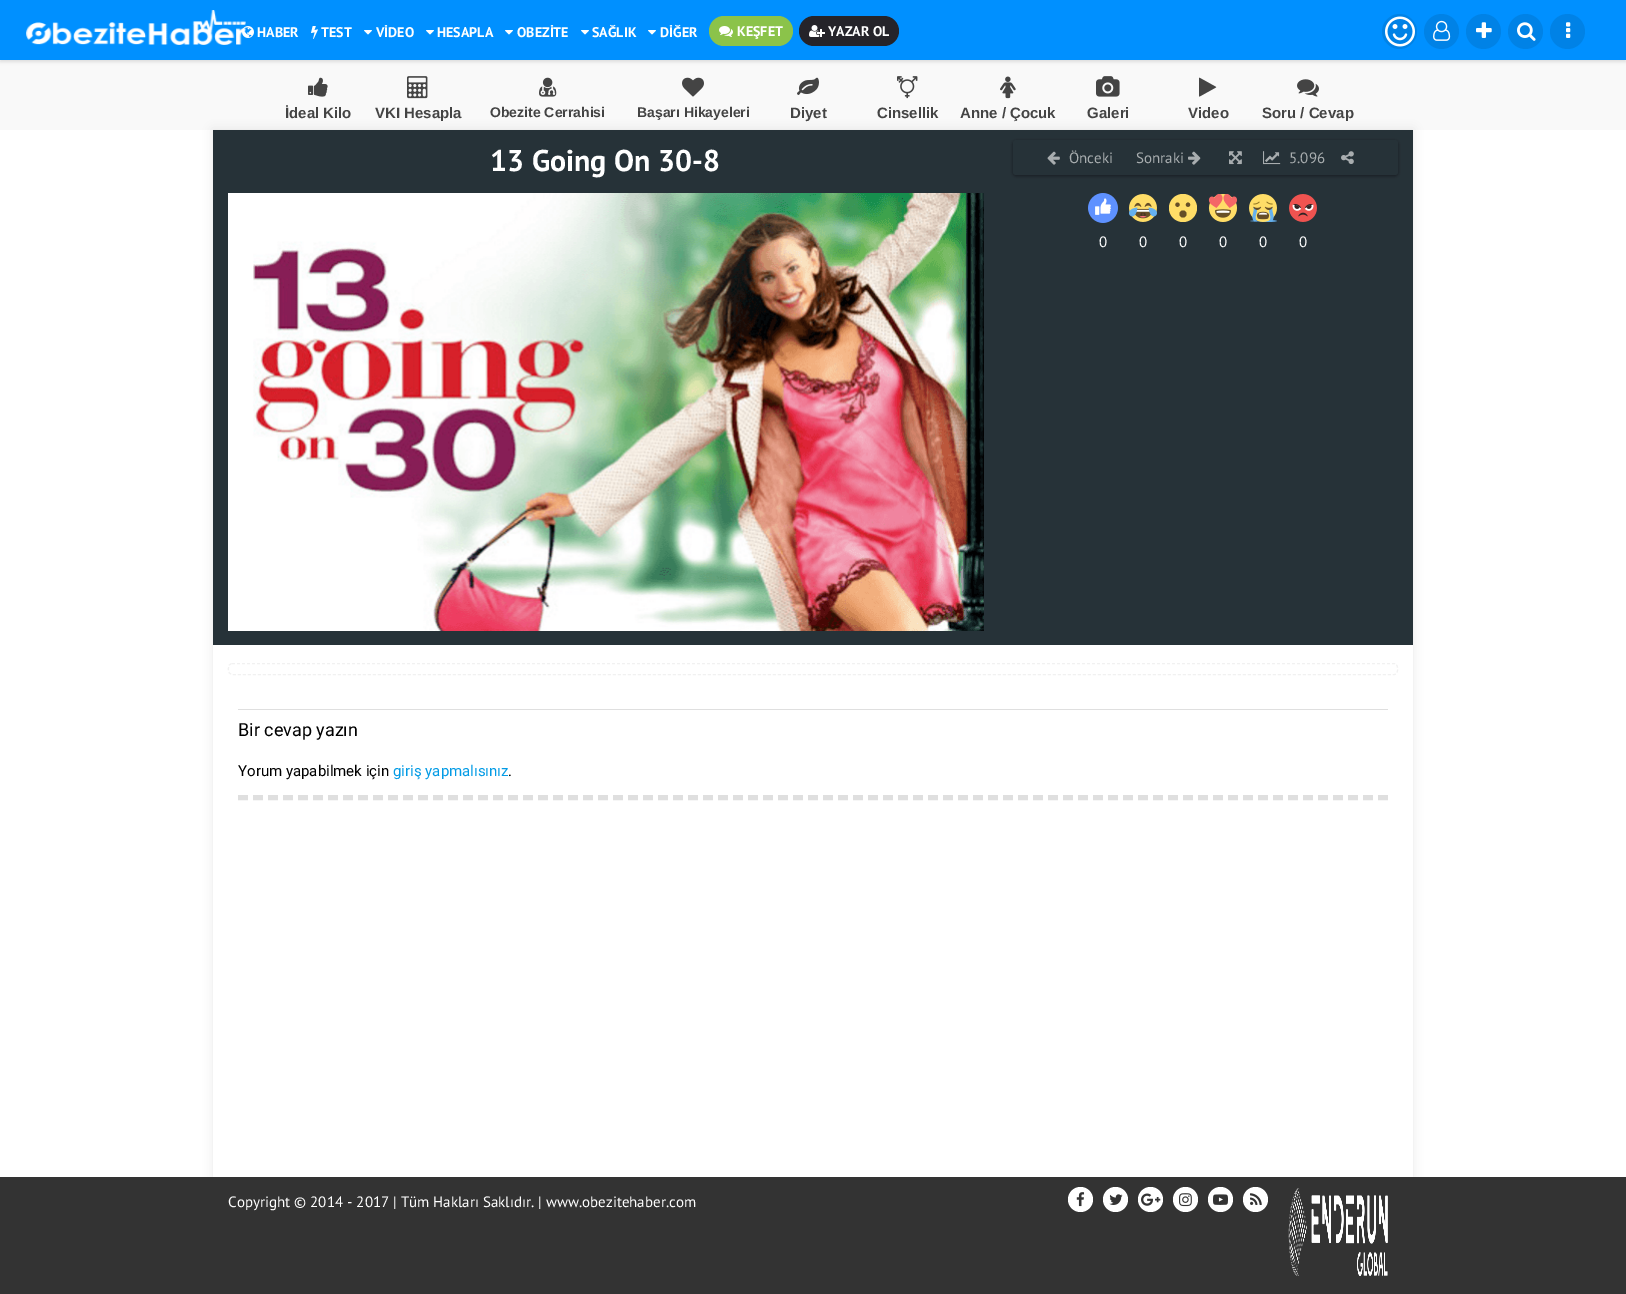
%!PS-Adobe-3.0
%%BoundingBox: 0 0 1626 1294
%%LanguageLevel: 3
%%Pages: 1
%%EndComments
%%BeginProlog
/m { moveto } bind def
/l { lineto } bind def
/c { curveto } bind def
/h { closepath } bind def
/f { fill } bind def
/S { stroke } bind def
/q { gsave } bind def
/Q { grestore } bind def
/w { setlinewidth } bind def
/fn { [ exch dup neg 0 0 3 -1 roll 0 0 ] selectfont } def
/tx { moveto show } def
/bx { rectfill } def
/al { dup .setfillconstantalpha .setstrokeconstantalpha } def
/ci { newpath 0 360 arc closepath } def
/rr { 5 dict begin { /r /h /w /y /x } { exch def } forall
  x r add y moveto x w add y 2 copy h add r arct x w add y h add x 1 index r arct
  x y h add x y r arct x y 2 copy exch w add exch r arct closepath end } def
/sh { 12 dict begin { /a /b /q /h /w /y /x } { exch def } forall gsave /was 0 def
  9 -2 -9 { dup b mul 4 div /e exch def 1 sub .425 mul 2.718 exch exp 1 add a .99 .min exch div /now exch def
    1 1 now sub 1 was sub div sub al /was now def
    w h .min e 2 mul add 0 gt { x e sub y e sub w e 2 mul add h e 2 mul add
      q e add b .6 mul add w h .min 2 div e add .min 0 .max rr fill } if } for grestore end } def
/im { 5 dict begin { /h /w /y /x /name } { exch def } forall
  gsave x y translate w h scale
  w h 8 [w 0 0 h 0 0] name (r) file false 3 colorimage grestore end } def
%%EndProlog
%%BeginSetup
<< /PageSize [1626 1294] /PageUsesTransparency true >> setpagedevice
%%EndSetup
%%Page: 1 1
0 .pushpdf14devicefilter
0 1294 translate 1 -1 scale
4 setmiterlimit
1 setgray
0 0 1626 1294 bx
0.976 setgray
0 60 1626 70 bx
0 setgray
0 2 1626 60 0 1.5 0.1 sh
0 0.565 1 setrgbcolor
0 0 1626 60 bx
(image0.raw) 26 10 220 35 im
(image1.raw) 242 26 12 12 im
/PTSans-Bold 14 fn
1 setgray
(HABER) 257 37 tx
(image2.raw) 311 26 7 13 im
(TEST) 321 37 tx
(image3.raw) 364 30 8 5 im
(VİDEO) 376 37 tx
(image3.raw) 426 30 8 5 im
(HESAPLA) 437 37 tx
(image3.raw) 505 30 8 5 im
(OBEZİTE) 517 37 tx
(image3.raw) 581 30 8 5 im
(SAĞLIK) 592 37 tx
(image3.raw) 648 30 8 5 im
(DİĞER) 660 37 tx
0.545 0.765 0.29 setrgbcolor
709 16 84 30 15 rr f
(image4.raw) 719 26 14 11 im
1 setgray
(KEŞFET) 737 36 tx
0.145 0.141 0.165 setrgbcolor
799 16 100 30 15 rr f
(image5.raw) 809 25 16 12 im
1 setgray
(YAZAR OL) 828 36 tx
0 0.51 0.902 setrgbcolor
1399.5 31.5 17.5 ci f
(image6.raw) 1385 16 30 31 im
1441.5 31.5 17.5 ci f
(image7.raw) 1433 20 18 21 im
1483.5 31.5 17.5 ci f
(image8.raw) 1476 22 16 16 im
1525.5 31.5 17.5 ci f
(image9.raw) 1517 22 19 19 im
1567.5 31.5 17.5 ci f
(image10.raw) 1566 22 5 16 im
(image11.raw) 308 77 20 20 im
/LiberationSans-Bold 15 fn
0.267 setgray
(İdeal Kilo) 285 118 tx
(image12.raw) 407 76 21 23 im
(VKI Hesapla) 375 118 tx
(image13.raw) 539 77 18 20 im
/LiberationSans-Bold 14 fn
(Obezite Cerrahisi) 490 117 tx
(image14.raw) 682 77 22 20 im
(Başarı Hikayeleri) 637 117 tx
(image15.raw) 797 77 22 18 im
/LiberationSans-Bold 15 fn
(Diyet) 790 118 tx
(image16.raw) 897 76 21 23 im
(Cinsellik) 877 118 tx
(image17.raw) 1000 76 16 23 im
(Anne / Çocuk) 960 118 tx
(image18.raw) 1096 76 24 21 im
(Galeri) 1087 118 tx
(image19.raw) 1199 77 18 20 im
(Video) 1188 118 tx
(image20.raw) 1297 79 22 18 im
(Soru / Cevap) 1262 118 tx
q
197 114 m 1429 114 l 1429 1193 l 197 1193 l h 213 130 m 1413 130 l 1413 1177 l 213 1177 l h eoclip newpath
0 setgray
213 130 1200 1047 0 5 0.09 sh
Q
0.149 0.196 0.22 setrgbcolor
213 130 1200 515 bx
/PTSans-Bold 30 fn
1 setgray
(13 Going On 30-8) 490 171 tx
0 setgray
1013 141 385 35 3 1.5 0.38 sh
0.149 0.196 0.22 setrgbcolor
1013 140 385 35 3 rr f
(image21.raw) 1047 151 13 14 im
/PTSans-Regular 15 fn
0.659 0.678 0.686 setrgbcolor
(Önceki) 1069 163 tx
(Sonraki) 1136 163 tx
(image22.raw) 1188 151 13 14 im
(image23.raw) 1229 151 13 14 im
(image24.raw) 1263 151 18 14 im
(5.096) 1289 163 tx
(image25.raw) 1341 151 13 13 im
(image26.raw) 1088 193 30 30 im
1 setgray
(0) 1099 247 tx
(image27.raw) 1129 194 28 28 im
(0) 1139 247 tx
1 0.867 0.404 setrgbcolor
1183 208 14 ci f
0.4 0.306 0.153 setrgbcolor
1177.5 204.7 2.1 ci f
1188 204.7 2.1 ci f
1183 214 3.5 ci f
1 setgray
(0) 1179 247 tx
(image28.raw) 1208 193 29 29 im
(0) 1219 247 tx
(image29.raw) 1249 194 28 28 im
(0) 1259 247 tx
(image30.raw) 1289 194 28 28 im
(0) 1299 247 tx
(image31.raw) 228 193 756 438 im
0.945 setgray
[3 2] 0 setdash
232 663.5 m 1394.5 663.5 l 1399 664.5 1399 673.5 1394.5 674.5 c 232 674.5 l 227 674.5 227 663.5 232 663.5 c h S
0.875 setgray
238 709 1150 1 bx
5 w
[10 5] 0 setdash
238 797.5 m 1388 797.5 l S
/Roboto-Regular 18 fn
0 setgray
(Bir cevap yazın) 238 736 tx
/Roboto-Regular 15 fn
(Yorum yapabilmek için) 238 776 tx
0.012 0.608 0.898 setrgbcolor
(giriş yapmalısınız) 393 776 tx
0 setgray
(.) 508 776 tx
0.2 setgray
0 1177 1626 117 bx
/PTSans-Regular 15 fn
1 setgray
(Copyright © 2014 - 2017 | Tüm Hakları Saklıdır. | www.obezitehaber.com) 228 1207 tx
1080.5 1199.5 12.5 ci f
(image32.raw) 1076 1192 9 15 im
1115.5 1199.5 12.5 ci f
(image33.raw) 1109 1194 14 11 im
1150.5 1199.5 12.5 ci f
(image34.raw) 1141 1193 20 13 im
1185.5 1199.5 12.5 ci f
(image35.raw) 1179 1193 13 14 im
1220.5 1199.5 12.5 ci f
(image36.raw) 1213 1194 15 11 im
1255.5 1199.5 12.5 ci f
(image37.raw) 1250 1193 12 12 im
(image38.raw) 1288 1188 100 88 im
.poppdf14devicefilter showpage
%%EOF
